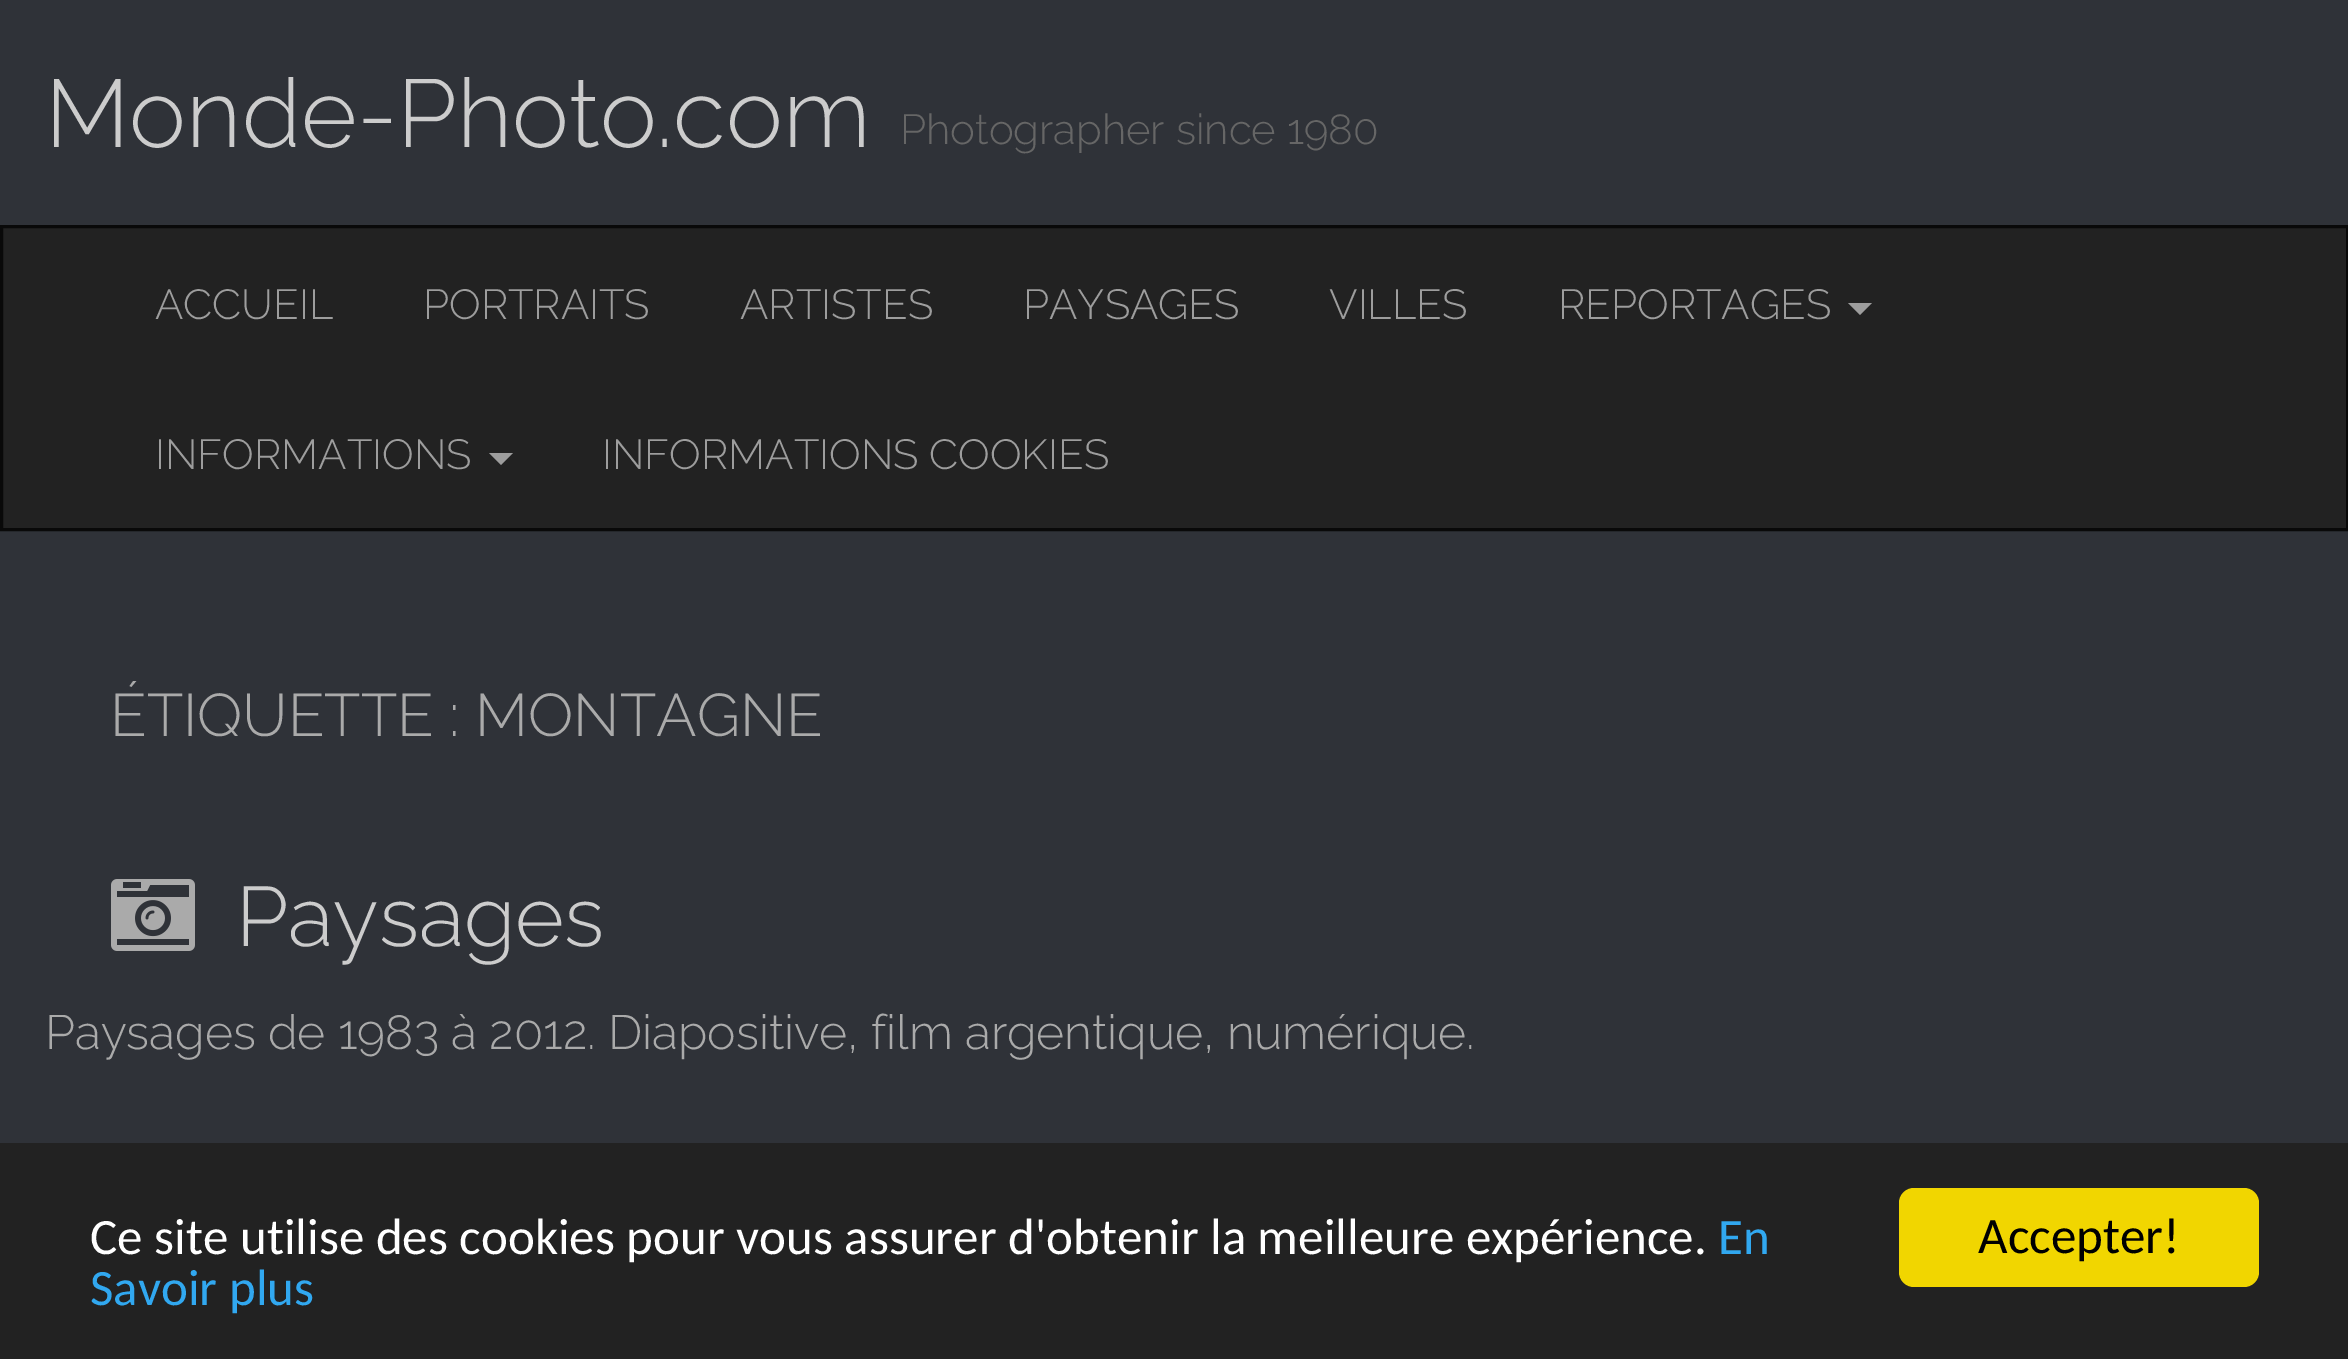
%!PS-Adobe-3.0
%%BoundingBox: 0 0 2348 1359
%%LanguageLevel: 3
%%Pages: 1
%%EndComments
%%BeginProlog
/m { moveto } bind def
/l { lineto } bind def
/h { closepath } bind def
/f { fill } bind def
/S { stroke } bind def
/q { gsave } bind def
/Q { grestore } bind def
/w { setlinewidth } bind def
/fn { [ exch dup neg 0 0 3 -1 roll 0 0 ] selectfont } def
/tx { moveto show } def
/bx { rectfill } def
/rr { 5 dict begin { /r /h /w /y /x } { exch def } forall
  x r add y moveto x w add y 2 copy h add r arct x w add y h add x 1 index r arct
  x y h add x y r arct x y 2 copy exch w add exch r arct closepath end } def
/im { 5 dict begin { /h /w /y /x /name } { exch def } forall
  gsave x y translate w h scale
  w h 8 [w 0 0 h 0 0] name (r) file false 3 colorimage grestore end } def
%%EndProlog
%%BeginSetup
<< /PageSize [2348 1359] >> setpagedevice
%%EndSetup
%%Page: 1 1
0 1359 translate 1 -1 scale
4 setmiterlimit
0.184 0.196 0.22 setrgbcolor
0 0 2348 1359 bx
/Raleway-Light 96 fn
0.8 setgray
(Monde-Photo.com) 45 147 tx
/Raleway-Light 42 fn
0.4 setgray
(Photographer since 1980) 900 144 tx
0.133 setgray
1.5 226.5 m 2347.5 226.5 l 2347.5 529.5 l 1.5 529.5 l h q f Q
0.035 setgray
3 w
S
0.616 setgray
(ACCUEIL) 155 319 tx
(PORTRAITS) 423 319 tx
(ARTISTES) 740 319 tx
(PAYSAGES) 1023 319 tx
(VILLES) 1329 319 tx
(REPORTAGES) 1558 319 tx
1848 303 m 1872 303 l 1860 315 l h f
(INFORMATIONS) 155 469 tx
489 453 m 513 453 l 501 465 l h f
(INFORMATIONS COOKIES) 602 469 tx
/Raleway-Light 60 fn
0.667 setgray
(ÉTIQUETTE : MONTAGNE) 110 736 tx
(image0.raw) 111 879 84 72 im
/Raleway-Light 84 fn
0.8 setgray
(Paysages) 236 946 tx
/Raleway-Light 48 fn
0.667 setgray
(Paysages de 1983 à 2012. Diapositive, film argentique, numérique.) 45 1049 tx
0.133 setgray
0 1143 2348 216 bx
/Carlito-Regular 51 fn
1 setgray
(Ce site utilise des cookies pour vous assurer d'obtenir la meilleure expérience.) 90 1254 tx
0.192 0.659 0.941 setrgbcolor
(En) 1718 1254 tx
(Savoir plus) 90 1305 tx
0.945 0.839 0 setrgbcolor
1899 1188 360 99 15 rr f
0 setgray
(Accepter!) 1978 1253 tx
showpage
%%EOF
